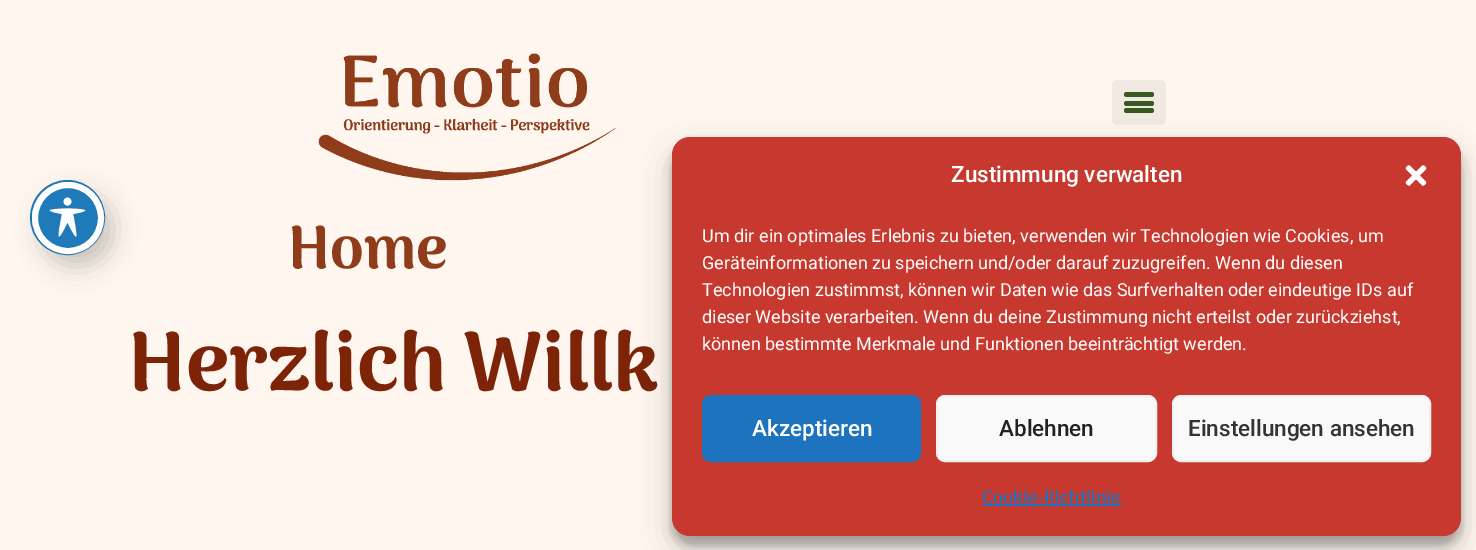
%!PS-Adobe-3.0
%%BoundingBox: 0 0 1476 550
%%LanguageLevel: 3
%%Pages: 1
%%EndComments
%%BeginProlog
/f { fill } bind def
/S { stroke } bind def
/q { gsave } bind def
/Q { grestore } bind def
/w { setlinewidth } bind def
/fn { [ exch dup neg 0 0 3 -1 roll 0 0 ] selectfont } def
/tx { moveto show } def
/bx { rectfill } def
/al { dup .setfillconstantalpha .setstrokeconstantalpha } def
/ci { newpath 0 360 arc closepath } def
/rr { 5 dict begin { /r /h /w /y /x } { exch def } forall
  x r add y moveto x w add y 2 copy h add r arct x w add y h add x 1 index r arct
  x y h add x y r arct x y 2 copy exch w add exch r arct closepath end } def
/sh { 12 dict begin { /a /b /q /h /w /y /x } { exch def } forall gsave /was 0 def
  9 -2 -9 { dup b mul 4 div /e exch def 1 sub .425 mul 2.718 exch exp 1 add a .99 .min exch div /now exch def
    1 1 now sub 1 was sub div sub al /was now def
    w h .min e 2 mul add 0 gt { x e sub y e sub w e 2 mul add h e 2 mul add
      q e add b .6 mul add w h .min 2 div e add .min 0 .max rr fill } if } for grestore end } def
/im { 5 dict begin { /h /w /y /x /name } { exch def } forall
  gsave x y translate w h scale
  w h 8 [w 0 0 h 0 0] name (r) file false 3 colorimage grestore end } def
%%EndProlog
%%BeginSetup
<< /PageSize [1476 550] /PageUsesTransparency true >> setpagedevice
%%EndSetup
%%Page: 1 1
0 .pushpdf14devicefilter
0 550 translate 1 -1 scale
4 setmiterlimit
0.996 0.965 0.937 setrgbcolor
0 0 1476 550 bx
(image0.raw) 318 53 298 128 im
0.945 0.918 0.89 setrgbcolor
1112 80 54 45 5 rr f
0.224 0.353 0.118 setrgbcolor
1124 101 30 5 2.5 rr f
1124 92 30 5 2.5 rr f
1124 108 30 5 2.5 rr f
0.118 0.478 0.725 setrgbcolor
2 w
67.5 217.5 36.5 ci S
0 setgray
41 194 72 72 36 12 0.2 sh
0.118 0.478 0.725 setrgbcolor
68 218 33 ci q f Q
1 setgray
6 w
S
(image1.raw) 49 197 37 40 im
/Arima-Bold 60 fn
0.561 0.235 0.102 setrgbcolor
(Home) 288 268 tx
/Arima-Bold 82.5 fn
0.49 0.137 0.027 setrgbcolor
(Herzlich Willk) 128 390 tx
0 setgray
672 146 789 399 18 4.5 0.23 sh
672 152 789 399 18 15 0.19 sh
0.78 0.22 0.18 setrgbcolor
672 137 789 399 18 rr f
/Roboto-Medium 22.5 fn
1 setgray
(Zustimmung verwalten) 951 182 tx
(image2.raw) 1405 165 22 21 im
/Roboto-Regular 18 fn
(Um dir ein optimales Erlebnis zu bieten, verwenden wir Technologien wie Cookies, um) 702 242 tx
(Geräteinformationen zu speichern und/oder darauf zuzugreifen. Wenn du diesen) 702 269 tx
(Technologien zustimmst, können wir Daten wie das Surfverhalten oder eindeutige IDs auf) 702 296 tx
(dieser Website verarbeiten. Wenn du deine Zustimmung nicht erteilst oder zurückziehst,) 702 323 tx
(können bestimmte Merkmale und Funktionen beeinträchtigt werden.) 702 350 tx
0.118 0.451 0.745 setrgbcolor
703 396 217 65 8 rr q f Q
2 w
S
/Roboto-Medium 22.5 fn
1 setgray
(Akzeptieren) 752 436 tx
0.976 setgray
937 396 219 65 8 rr q f Q
0.949 setgray
S
0.133 setgray
(Ablehnen) 999 436 tx
0.976 setgray
1173 396 257 65 8 rr q f Q
0.949 setgray
S
0.2 setgray
(Einstellungen ansehen) 1188 436 tx
/Arima-SemiBold 18 fn
0.118 0.451 0.745 setrgbcolor
(Cookie-Richtlinie) 982 503 tx
983 504 138 2 bx
.poppdf14devicefilter showpage
%%EOF
